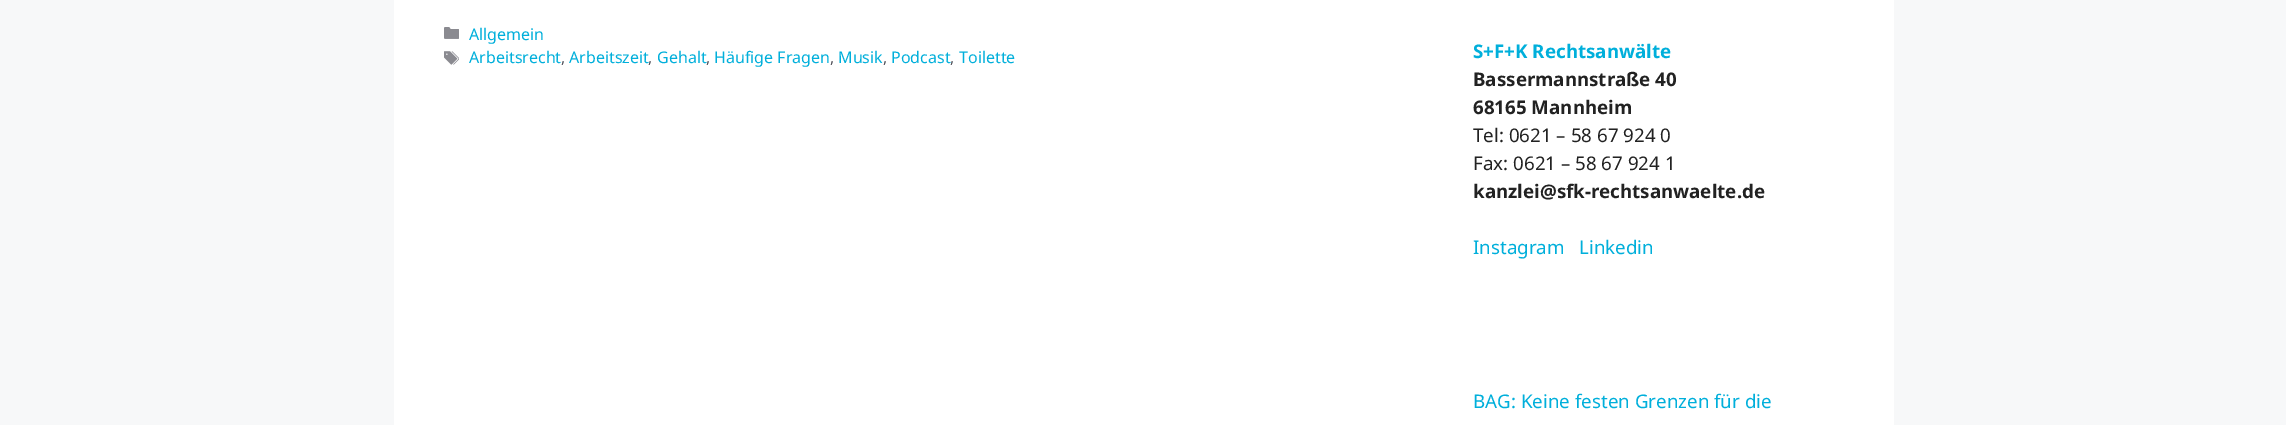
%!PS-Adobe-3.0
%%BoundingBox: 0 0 2286 425
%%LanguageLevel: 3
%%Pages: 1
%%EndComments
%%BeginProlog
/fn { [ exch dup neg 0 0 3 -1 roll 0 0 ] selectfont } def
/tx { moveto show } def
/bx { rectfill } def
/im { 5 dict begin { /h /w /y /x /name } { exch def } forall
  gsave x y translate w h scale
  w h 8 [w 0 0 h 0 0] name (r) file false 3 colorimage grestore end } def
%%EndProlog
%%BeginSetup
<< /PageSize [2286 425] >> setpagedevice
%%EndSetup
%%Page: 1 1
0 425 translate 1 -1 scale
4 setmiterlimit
0.969 0.973 0.976 setrgbcolor
0 0 2286 425 bx
1 setgray
394 0 1500 425 bx
(image0.raw) 444 27 15 12 im
/NotoSans-Regular 16 fn
0 0.686 0.859 setrgbcolor
(Allgemein) 469 40 tx
(image1.raw) 444 51 15 14 im
(Arbeitsrecht) 469 63 tx
0.341 0.341 0.376 setrgbcolor
(,) 561 63 tx
0 0.686 0.859 setrgbcolor
(Arbeitszeit) 569 63 tx
0.341 0.341 0.376 setrgbcolor
(,) 648 63 tx
0 0.686 0.859 setrgbcolor
(Gehalt) 657 63 tx
0.341 0.341 0.376 setrgbcolor
(,) 706 63 tx
0 0.686 0.859 setrgbcolor
(Häufige Fragen) 714 63 tx
0.341 0.341 0.376 setrgbcolor
(,) 830 63 tx
0 0.686 0.859 setrgbcolor
(Musik) 838 63 tx
0.341 0.341 0.376 setrgbcolor
(,) 883 63 tx
0 0.686 0.859 setrgbcolor
(Podcast) 891 63 tx
0.341 0.341 0.376 setrgbcolor
(,) 950 63 tx
0 0.686 0.859 setrgbcolor
(Toilette) 959 63 tx
/NotoSans-Bold 18.75 fn
(S+F+K Rechtsanwälte) 1473 58 tx
0.133 setgray
(Bassermannstraße 40) 1473 86 tx
(68165 Mannheim) 1473 114 tx
/NotoSans-Regular 18.75 fn
(Tel: 0621 – 58 67 924 0) 1473 142 tx
(Fax: 0621 – 58 67 924 1) 1473 170 tx
/NotoSans-Bold 18.75 fn
(kanzlei@sfk-rechtsanwaelte.de) 1473 198 tx
/NotoSans-Regular 18.75 fn
0 0.686 0.859 setrgbcolor
(Instagram) 1473 254 tx
(Linkedin) 1579 254 tx
(BAG: Keine festen Grenzen für die) 1473 408 tx
showpage
%%EOF
